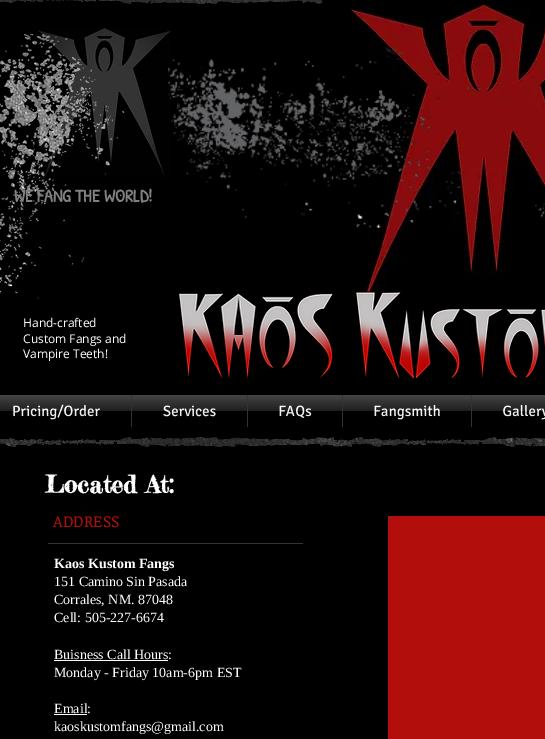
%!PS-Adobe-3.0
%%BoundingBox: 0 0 545 739
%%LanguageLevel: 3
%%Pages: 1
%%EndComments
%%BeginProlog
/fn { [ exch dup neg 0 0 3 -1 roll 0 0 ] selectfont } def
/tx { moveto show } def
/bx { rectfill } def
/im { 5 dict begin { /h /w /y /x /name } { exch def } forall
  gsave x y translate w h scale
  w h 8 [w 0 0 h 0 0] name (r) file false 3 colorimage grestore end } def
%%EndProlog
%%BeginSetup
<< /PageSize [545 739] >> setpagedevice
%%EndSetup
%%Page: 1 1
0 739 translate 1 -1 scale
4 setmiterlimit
1 setgray
0 0 545 739 bx
(image0.raw) 0 0 545 447 im
0 setgray
0 6 545 429 bx
(image8.raw) 38 28 133 150 im
(image10.raw) 0 34 125 265 im
/PatrickHand-Bold 18 fn
0.506 setgray
(WE FANG THE WORLD!) 14 202 tx
/Signika-Regular 15 fn
1 setgray
(Pricing/Order) 12 416 tx
(image1.raw) 0 395 131 24 im
0.2 setgray
131 395 1 32 bx
1 setgray
(Services) 163 416 tx
(image2.raw) 132 395 115 21 im
0.2 setgray
247 395 1 32 bx
1 setgray
(FAQs) 278 416 tx
(image3.raw) 248 395 94 23 im
0.2 setgray
342 395 1 32 bx
1 setgray
(Fangsmith) 373 416 tx
(image4.raw) 343 395 128 24 im
0.2 setgray
471 395 1 32 bx
1 setgray
(Gallery) 502 416 tx
(image5.raw) 472 395 73 24 im
(image6.raw) 0 0 322 6 im
(image7.raw) 0 435 545 7 im
(image9.raw) 322 0 223 307 im
(image11.raw) 168 48 305 180 im
(image12.raw) 535 203 10 15 im
/OpenSans-Regular 12 fn
(Hand-crafted) 23 327 tx
(Custom Fangs and) 23 343 tx
(Vampire Teeth!) 23 358 tx
(image13.raw) 179 291 366 87 im
0 setgray
0 452 545 287 bx
(image14.raw) 0 442 545 10 im
/FrederickatheGreat-Bold 24 fn
1 setgray
(Located At:) 45 493 tx
/NoticiaText-Regular 16 fn
0.698 0.059 0.047 setrgbcolor
(ADDRESS) 53 527 tx
388 516 157 223 bx
0.2 setgray
48 543 255 1 bx
/LiberationSerif-Bold 14 fn
1 setgray
(Kaos Kustom Fangs) 54 568 tx
/LiberationSerif-Regular 14 fn
(151 Camino Sin Pasada) 54 586 tx
(Corrales, NM. 87048) 54 604 tx
(Cell: 505-227-6674) 54 622 tx
(Buisness Call Hours:) 54 659 tx
54 660 114 1 bx
(Monday - Friday 10am-6pm EST) 54 677 tx
(Email:) 54 713 tx
54 714 33 1 bx
(kaoskustomfangs@gmail.com) 54 731 tx
showpage
%%EOF
